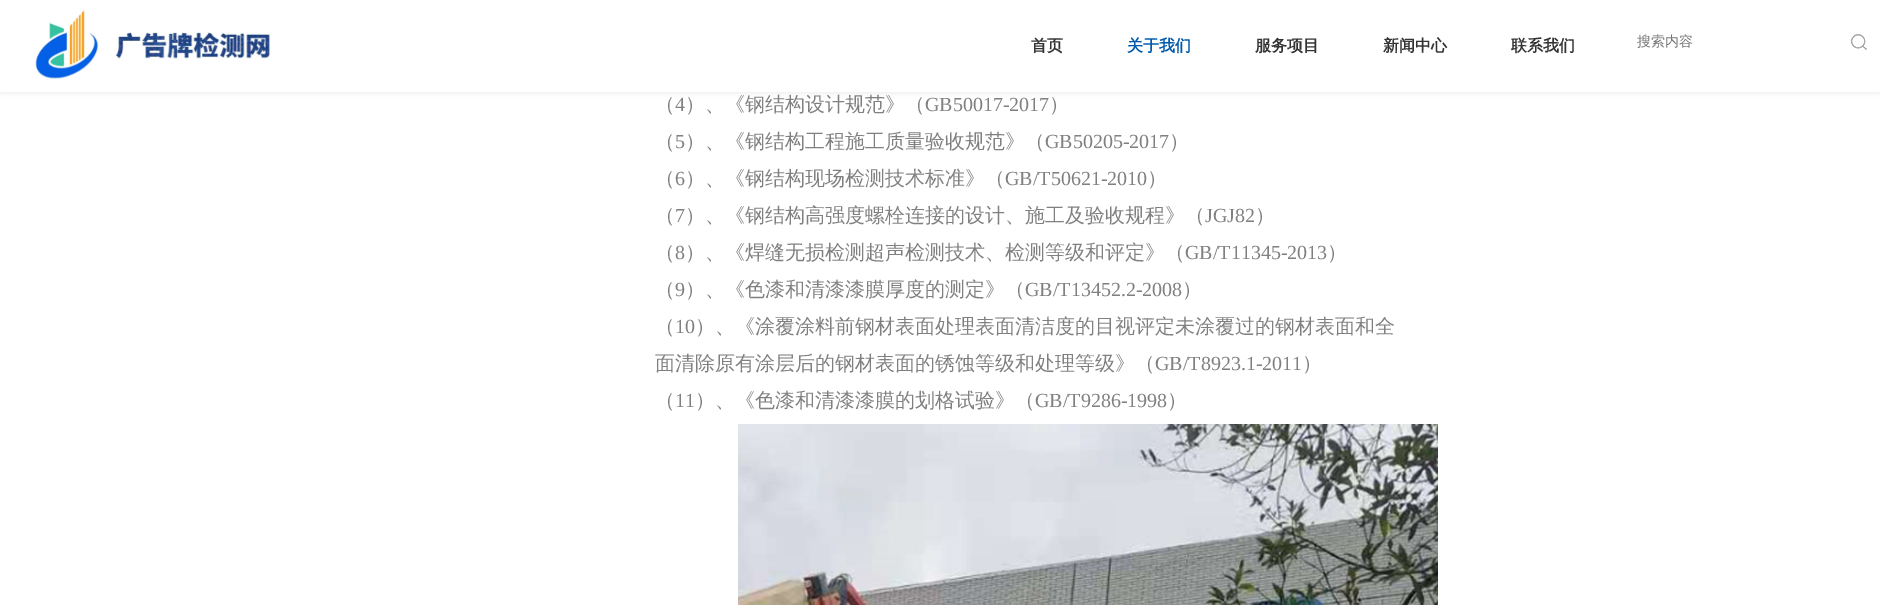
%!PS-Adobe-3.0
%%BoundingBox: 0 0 1880 605
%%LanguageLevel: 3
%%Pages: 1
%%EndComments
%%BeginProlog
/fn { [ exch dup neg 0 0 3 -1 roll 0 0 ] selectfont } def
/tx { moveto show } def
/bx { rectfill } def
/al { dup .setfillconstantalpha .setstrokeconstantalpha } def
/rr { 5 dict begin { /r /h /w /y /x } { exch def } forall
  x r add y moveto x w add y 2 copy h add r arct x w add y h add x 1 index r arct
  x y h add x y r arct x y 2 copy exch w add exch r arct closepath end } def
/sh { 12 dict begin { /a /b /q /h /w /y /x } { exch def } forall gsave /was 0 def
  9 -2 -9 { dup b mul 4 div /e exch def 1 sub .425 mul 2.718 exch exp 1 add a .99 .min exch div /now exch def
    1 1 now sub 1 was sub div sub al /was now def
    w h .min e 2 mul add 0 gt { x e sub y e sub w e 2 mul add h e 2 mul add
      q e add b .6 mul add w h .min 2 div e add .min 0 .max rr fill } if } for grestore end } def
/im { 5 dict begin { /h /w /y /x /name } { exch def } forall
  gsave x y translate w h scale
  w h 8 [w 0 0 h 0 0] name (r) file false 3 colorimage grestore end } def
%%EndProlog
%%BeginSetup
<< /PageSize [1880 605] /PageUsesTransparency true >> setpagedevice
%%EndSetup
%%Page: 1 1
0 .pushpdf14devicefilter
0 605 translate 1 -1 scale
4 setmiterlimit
1 setgray
0 0 1880 605 bx
0 setgray
0 2 1880 92 0 2.5 0.05 sh
1 setgray
0 0 1880 92 bx
(image0.raw) 35 10 235 69 im
/WenQuanYiZenHei-Bold 16 fn
0.2 setgray
(首页) 1031 51 tx
0 0.349 0.671 setrgbcolor
(关于我们) 1127 51 tx
0.2 setgray
(服务项目) 1255 51 tx
(新闻中心) 1383 51 tx
(联系我们) 1511 51 tx
/WenQuanYiZenHei-Medium 14 fn
0.459 setgray
(搜索内容) 1637 46 tx
(image1.raw) 1851 34 16 16 im
/WenQuanYiZenHei-Medium 20 fn
0.502 setgray
(（) 655 111 tx
/LiberationSerif-Regular 20 fn
(4) 675 111 tx
/WenQuanYiZenHei-Medium 20 fn
(）、《钢结构设计规范》（) 685 111 tx
/LiberationSerif-Regular 20 fn
(GB50017-2017) 925 111 tx
/WenQuanYiZenHei-Medium 20 fn
(）) 1049 111 tx
(（) 655 148 tx
/LiberationSerif-Regular 20 fn
(5) 675 148 tx
/WenQuanYiZenHei-Medium 20 fn
(）、《钢结构工程施工质量验收规范》（) 685 148 tx
/LiberationSerif-Regular 20 fn
(GB50205-2017) 1045 148 tx
/WenQuanYiZenHei-Medium 20 fn
(）) 1169 148 tx
(（) 655 185 tx
/LiberationSerif-Regular 20 fn
(6) 675 185 tx
/WenQuanYiZenHei-Medium 20 fn
(）、《钢结构现场检测技术标准》（) 685 185 tx
/LiberationSerif-Regular 20 fn
(GB/T50621-2010) 1005 185 tx
/WenQuanYiZenHei-Medium 20 fn
(）) 1147 185 tx
(（) 655 222 tx
/LiberationSerif-Regular 20 fn
(7) 675 222 tx
/WenQuanYiZenHei-Medium 20 fn
(）、《钢结构高强度螺栓连接的设计、施工及验收规程》（) 685 222 tx
/LiberationSerif-Regular 20 fn
(JGJ82) 1205 222 tx
/WenQuanYiZenHei-Medium 20 fn
(）) 1255 222 tx
(（) 655 259 tx
/LiberationSerif-Regular 20 fn
(8) 675 259 tx
/WenQuanYiZenHei-Medium 20 fn
(）、《焊缝无损检测超声检测技术、检测等级和评定》（) 685 259 tx
/LiberationSerif-Regular 20 fn
(GB/T11345-2013) 1185 259 tx
/WenQuanYiZenHei-Medium 20 fn
(）) 1327 259 tx
(（) 655 296 tx
/LiberationSerif-Regular 20 fn
(9) 675 296 tx
/WenQuanYiZenHei-Medium 20 fn
(）、《色漆和清漆漆膜厚度的测定》（) 685 296 tx
/LiberationSerif-Regular 20 fn
(GB/T13452.2-2008) 1025 296 tx
/WenQuanYiZenHei-Medium 20 fn
(）) 1182 296 tx
(（) 655 333 tx
/LiberationSerif-Regular 20 fn
(10) 675 333 tx
/WenQuanYiZenHei-Medium 20 fn
(）、《涂覆涂料前钢材表面处理表面清洁度的目视评定未涂覆过的钢材表面和全) 695 333 tx
(面清除原有涂层后的钢材表面的锈蚀等级和处理等级》（) 655 370 tx
/LiberationSerif-Regular 20 fn
(GB/T8923.1-2011) 1155 370 tx
/WenQuanYiZenHei-Medium 20 fn
(）) 1302 370 tx
(（) 655 407 tx
/LiberationSerif-Regular 20 fn
(11) 675 407 tx
/WenQuanYiZenHei-Medium 20 fn
(）、《色漆和清漆漆膜的划格试验》（) 695 407 tx
/LiberationSerif-Regular 20 fn
(GB/T9286-1998) 1035 407 tx
/WenQuanYiZenHei-Medium 20 fn
(）) 1167 407 tx
(image2.raw) 738 424 700 181 im
.poppdf14devicefilter showpage
%%EOF
